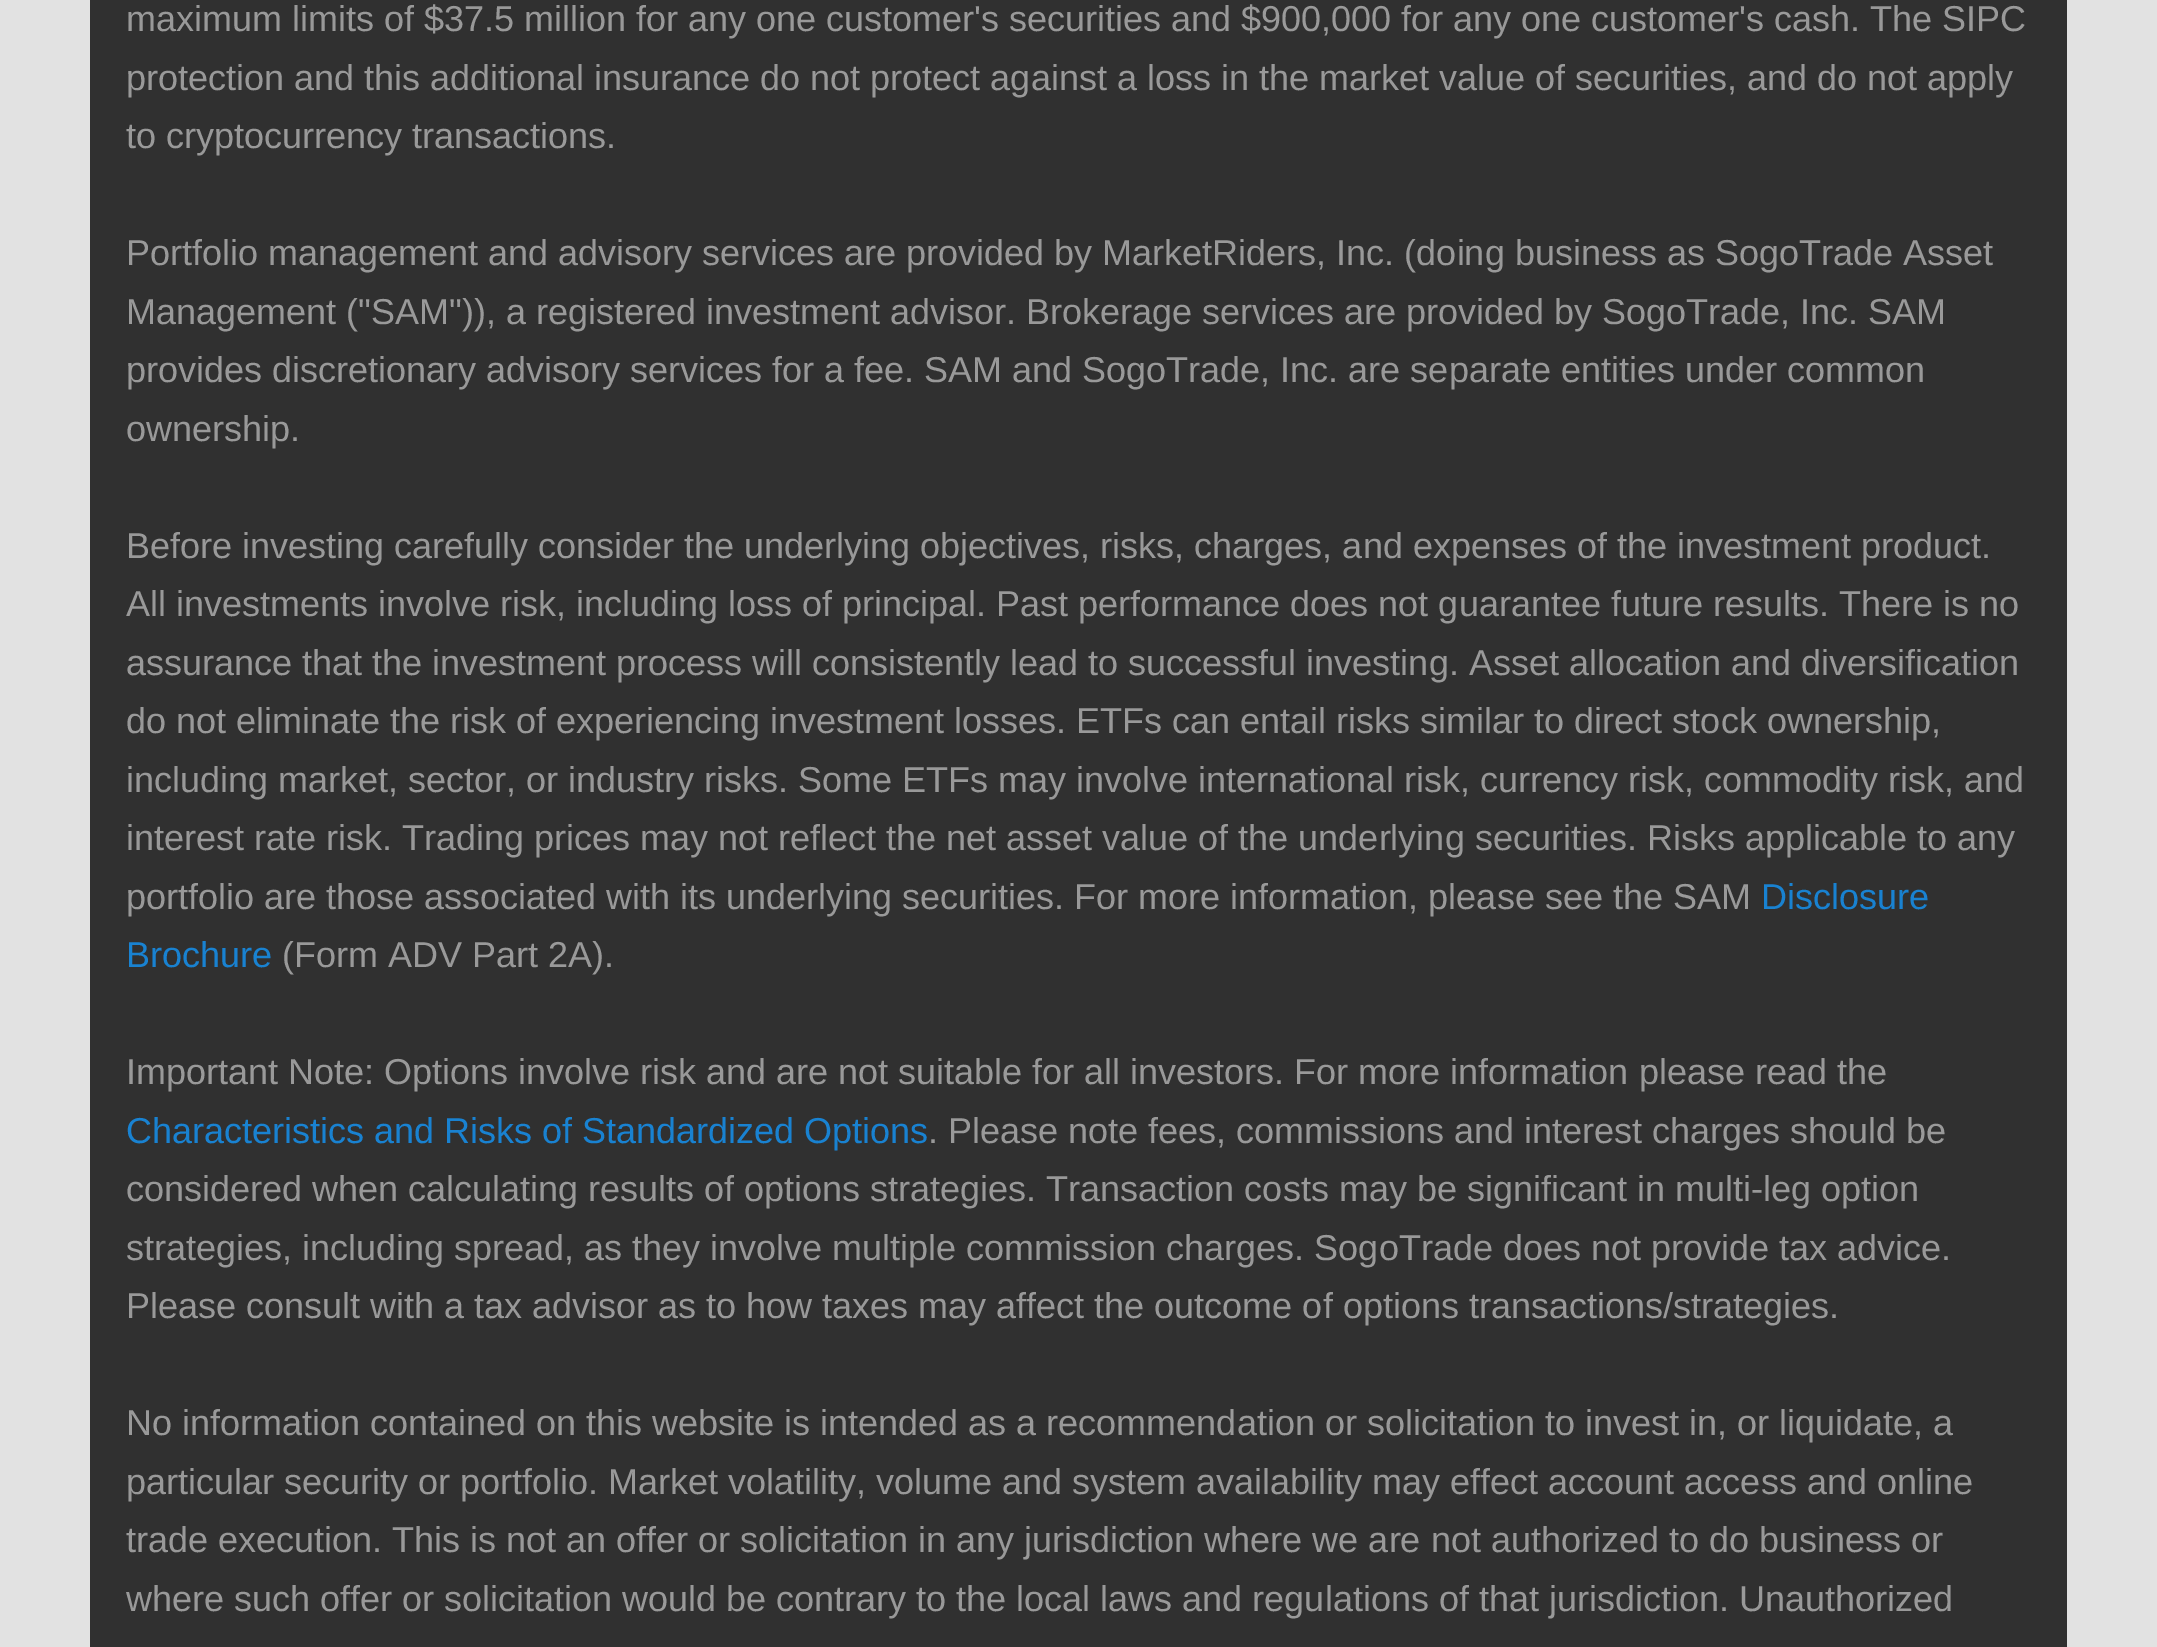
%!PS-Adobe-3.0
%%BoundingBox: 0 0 2157 1647
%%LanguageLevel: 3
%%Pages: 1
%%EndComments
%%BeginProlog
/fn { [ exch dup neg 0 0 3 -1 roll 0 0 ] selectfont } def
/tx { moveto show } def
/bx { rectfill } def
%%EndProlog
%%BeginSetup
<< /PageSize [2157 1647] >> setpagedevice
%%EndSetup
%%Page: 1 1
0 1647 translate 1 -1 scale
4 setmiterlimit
0.886 setgray
0 0 2157 1647 bx
0.188 setgray
90 0 1977 1647 bx
/LiberationSans-Regular 36 fn
0.6 setgray
(maximum limits of $37.5 million for any one customer's securities and $900,000 for any one customer's cash. The SIPC) 126 31 tx
(protection and this additional insurance do not protect against a loss in the market value of securities, and do not apply) 126 90 tx
(to cryptocurrency transactions.) 126 148 tx
(Portfolio management and advisory services are provided by MarketRiders, Inc. \(doing business as SogoTrade Asset) 126 265 tx
(Management \("SAM"\)\), a registered investment advisor. Brokerage services are provided by SogoTrade, Inc. SAM) 126 324 tx
(provides discretionary advisory services for a fee. SAM and SogoTrade, Inc. are separate entities under common) 126 382 tx
(ownership.) 126 441 tx
(Before investing carefully consider the underlying objectives, risks, charges, and expenses of the investment product.) 126 558 tx
(All investments involve risk, including loss of principal. Past performance does not guarantee future results. There is no) 126 616 tx
(assurance that the investment process will consistently lead to successful investing. Asset allocation and diversification) 126 675 tx
(do not eliminate the risk of experiencing investment losses. ETFs can entail risks similar to direct stock ownership,) 126 733 tx
(including market, sector, or industry risks. Some ETFs may involve international risk, currency risk, commodity risk, and) 126 792 tx
(interest rate risk. Trading prices may not reflect the net asset value of the underlying securities. Risks applicable to any) 126 850 tx
(portfolio are those associated with its underlying securities. For more information, please see the SAM) 126 909 tx
0.098 0.51 0.82 setrgbcolor
(Disclosure) 1761 909 tx
(Brochure) 126 967 tx
0.6 setgray
(\(Form ADV Part 2A\).) 282 967 tx
(Important Note: Options involve risk and are not suitable for all investors. For more information please read the) 126 1084 tx
0.098 0.51 0.82 setrgbcolor
(Characteristics and Risks of Standardized Options) 126 1143 tx
0.6 setgray
(. Please note fees, commissions and interest charges should be) 928 1143 tx
(considered when calculating results of options strategies. Transaction costs may be significant in multi-leg option) 126 1201 tx
(strategies, including spread, as they involve multiple commission charges. SogoTrade does not provide tax advice.) 126 1260 tx
(Please consult with a tax advisor as to how taxes may affect the outcome of options transactions/strategies.) 126 1318 tx
(No information contained on this website is intended as a recommendation or solicitation to invest in, or liquidate, a) 126 1435 tx
(particular security or portfolio. Market volatility, volume and system availability may effect account access and online) 126 1494 tx
(trade execution. This is not an offer or solicitation in any jurisdiction where we are not authorized to do business or) 126 1552 tx
(where such offer or solicitation would be contrary to the local laws and regulations of that jurisdiction. Unauthorized) 126 1611 tx
showpage
%%EOF
